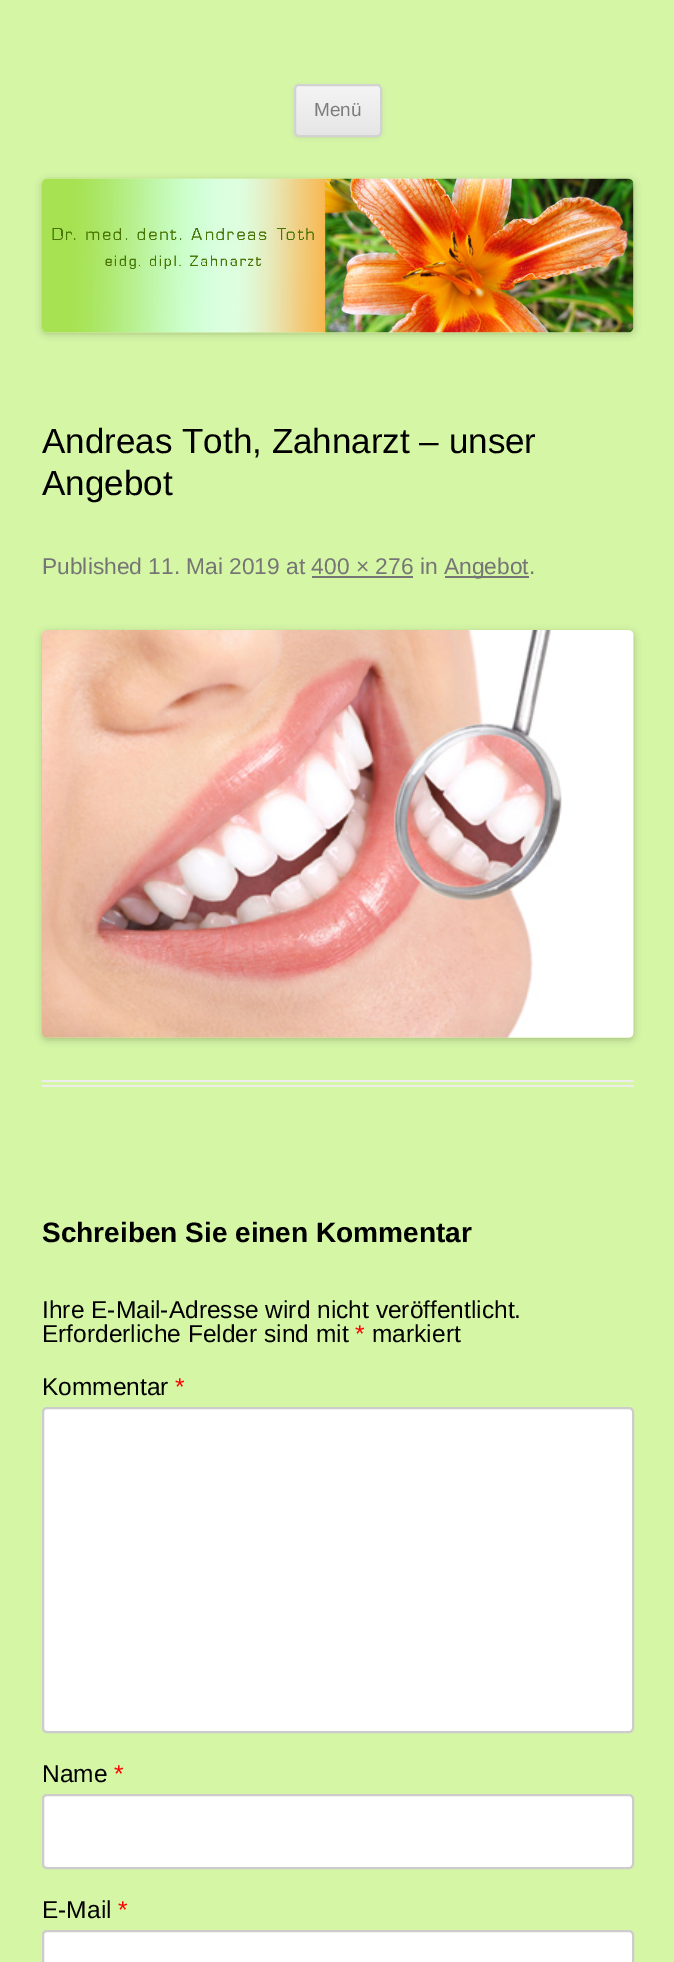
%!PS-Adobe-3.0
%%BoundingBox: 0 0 674 1962
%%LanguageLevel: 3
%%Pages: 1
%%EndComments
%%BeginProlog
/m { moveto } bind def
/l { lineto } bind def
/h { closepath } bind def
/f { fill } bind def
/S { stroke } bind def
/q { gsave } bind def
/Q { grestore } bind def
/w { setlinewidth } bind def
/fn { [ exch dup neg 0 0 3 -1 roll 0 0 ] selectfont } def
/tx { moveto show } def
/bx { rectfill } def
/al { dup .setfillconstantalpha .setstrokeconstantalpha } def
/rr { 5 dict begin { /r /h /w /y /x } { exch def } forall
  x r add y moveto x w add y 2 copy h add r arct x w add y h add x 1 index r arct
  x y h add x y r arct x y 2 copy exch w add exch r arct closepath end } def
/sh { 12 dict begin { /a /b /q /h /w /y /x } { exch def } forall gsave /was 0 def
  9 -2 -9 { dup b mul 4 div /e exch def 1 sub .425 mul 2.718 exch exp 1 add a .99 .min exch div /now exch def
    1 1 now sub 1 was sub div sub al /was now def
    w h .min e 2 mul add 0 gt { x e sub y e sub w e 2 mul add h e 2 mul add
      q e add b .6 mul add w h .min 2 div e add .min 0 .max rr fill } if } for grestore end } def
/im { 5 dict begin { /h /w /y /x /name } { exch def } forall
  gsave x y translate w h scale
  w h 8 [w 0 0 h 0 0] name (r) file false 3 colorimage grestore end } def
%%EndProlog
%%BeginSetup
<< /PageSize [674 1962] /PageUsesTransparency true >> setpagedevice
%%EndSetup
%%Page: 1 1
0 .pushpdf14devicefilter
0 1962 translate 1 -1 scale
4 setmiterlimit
0.835 0.965 0.647 setrgbcolor
0 0 674 1962 bx
0.251 setgray
294 86 88 52 5 2 0.1 sh
q
294 84 88 53 5 rr clip newpath
q 294 86 m 382 86 l 382 135 l 294 135 l h clip newpath
<< /ShadingType 2 /ColorSpace /DeviceRGB /Coords [338 86 338 135] /Extend [true true] /Function << /FunctionType 2 /Domain [0 1] /C0 [0.957 0.957 0.957] /C1 [0.902 0.902 0.902] /N 1 >> >> shfill Q
Q
0.824 setgray
2 w
295 85 86 51 4 rr S
/LiberationSans-Regular 19 fn
0.486 setgray
(Menü) 314 116 tx
0 setgray
42 180 592 154 5 3.5 0.2 sh
(image0.raw) 42 178 592 155 im
0.929 setgray
42 1080 592 2 bx
42 1085 592 2 bx
/LiberationSans-Regular 35 fn
0 setgray
(Andreas Toth, Zahnarzt – unser) 42 453 tx
(Angebot) 42 495 tx
/LiberationSans-Regular 22.75 fn
0.459 setgray
(Published 11. Mai 2019 at 400 × 276 in) 42 574 tx
445 576 84 2 bx
(Angebot.) 444 574 tx
312 576 101 2 bx
0 setgray
42 632 592 408 5 3.5 0.2 sh
(image1.raw) 42 630 592 408 im
/LiberationSans-Bold 28 fn
(Schreiben Sie einen Kommentar) 42 1242 tx
/LiberationSans-Regular 24.5 fn
(Ihre E-Mail-Adresse wird nicht veröffentlicht.) 42 1318 tx
(Erforderliche Felder sind mit) 42 1342 tx
1 0 0 setrgbcolor
(*) 355 1342 tx
0 setgray
(markiert) 372 1342 tx
(Kommentar) 42 1395 tx
1 0 0 setrgbcolor
(*) 175 1395 tx
1 setgray
43 1408 590 324 4 rr q f Q
0.8 setgray
S
0 setgray
(Name) 42 1782 tx
1 0 0 setrgbcolor
(*) 114 1782 tx
1 setgray
43 1795 590 73 4 rr q f Q
0.8 setgray
S
0 setgray
(E-Mail) 42 1918 tx
1 0 0 setrgbcolor
(*) 118 1918 tx
1 setgray
43 1931 590 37 4 rr q f Q
0.8 setgray
S
.poppdf14devicefilter showpage
%%EOF
